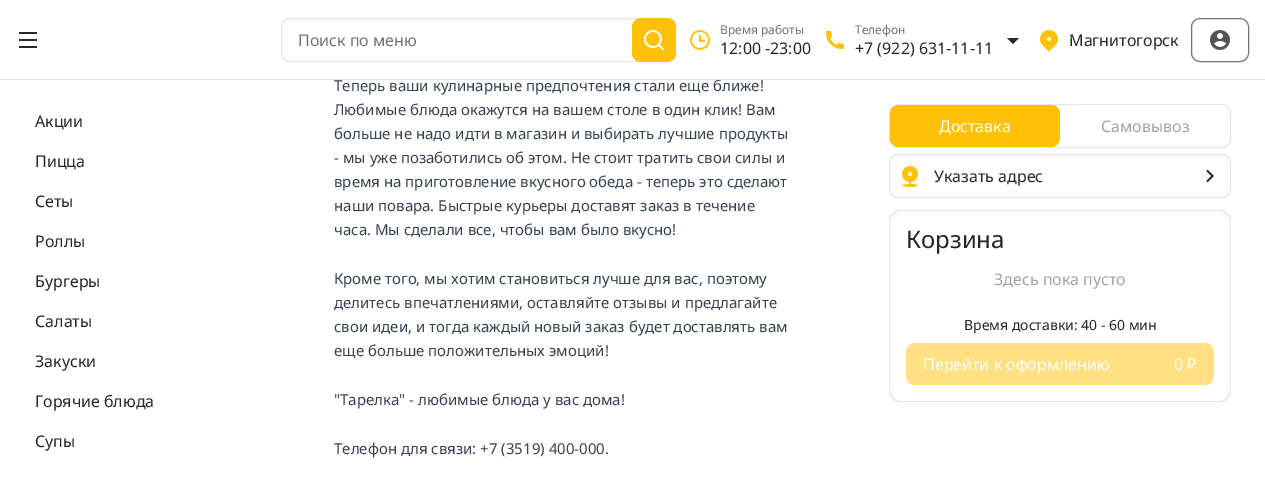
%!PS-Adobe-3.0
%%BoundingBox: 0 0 1265 481
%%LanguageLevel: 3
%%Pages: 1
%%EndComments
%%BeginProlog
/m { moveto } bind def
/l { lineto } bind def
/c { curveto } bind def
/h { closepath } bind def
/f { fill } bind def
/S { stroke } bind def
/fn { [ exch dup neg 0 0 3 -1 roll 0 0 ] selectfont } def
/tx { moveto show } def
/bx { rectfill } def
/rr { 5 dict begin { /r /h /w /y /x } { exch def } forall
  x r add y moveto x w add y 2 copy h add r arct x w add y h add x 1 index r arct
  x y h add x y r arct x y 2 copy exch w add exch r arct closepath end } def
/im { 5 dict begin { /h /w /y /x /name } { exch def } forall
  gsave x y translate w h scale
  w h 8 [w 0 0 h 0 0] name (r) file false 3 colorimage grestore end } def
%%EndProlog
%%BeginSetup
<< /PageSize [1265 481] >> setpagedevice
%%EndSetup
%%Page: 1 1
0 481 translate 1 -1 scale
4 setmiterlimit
1 setgray
0 0 1265 481 bx
/NotoSans-Regular 15 fn
0.212 0.255 0.325 setrgbcolor
(Теперь ваши кулинарные предпочтения стали еще ближе!) 334 91 tx
0.898 setgray
0 79 1265 1 bx
(image0.raw) 19 32 18 16 im
281.5 18.5 394 43 8.5 rr S
/NotoSans-Regular 16 fn
0.451 setgray
(Поиск по меню) 298 46 tx
1 0.757 0.027 setrgbcolor
632 18 44 44 9 rr f
(image1.raw) 644 30 21 21 im
(image2.raw) 690 30 20 20 im
/NotoSans-Regular 12 fn
0.451 setgray
(Время работы) 720 34 tx
/NotoSans-Regular 16 fn
0.149 setgray
(12:00 -23:00) 720 54 tx
(image3.raw) 826 31 18 18 im
/NotoSans-Regular 12 fn
0.451 setgray
(Телефон) 855 34 tx
/NotoSans-Regular 16 fn
0.149 setgray
(+7 \(922\) 631-11-11) 855 54 tx
1013 44 m 1007 38 l 1019 38 l h f
(image4.raw) 1040 30 18 22 im
(Магнитогорск) 1069 46 tx
0.451 setgray
1191.5 18.5 57 43 8.5 rr S
(image5.raw) 1210 30 20 20 im
0.149 setgray
(Акции) 35 127 tx
(Пицца) 35 167 tx
(Сеты) 35 207 tx
(Роллы) 35 247 tx
(Бургеры) 35 287 tx
(Салаты) 35 327 tx
(Закуски) 35 367 tx
(Горячие блюда) 35 407 tx
(Супы) 35 447 tx
/NotoSans-Regular 15 fn
0.212 0.255 0.325 setrgbcolor
(Любимые блюда окажутся на вашем столе в один клик! Вам) 334 115 tx
(больше не надо идти в магазин и выбирать лучшие продукты) 334 139 tx
(- мы уже позаботились об этом. Не стоит тратить свои силы и) 334 163 tx
(время на приготовление вкусного обеда - теперь это сделают) 334 187 tx
(наши повара. Быстрые курьеры доставят заказ в течение) 334 211 tx
(часа. Мы сделали все, чтобы вам было вкусно!) 334 235 tx
(Кроме того, мы хотим становиться лучше для вас, поэтому) 334 284 tx
(делитесь впечатлениями, оставляйте отзывы и предлагайте) 334 308 tx
(свои идеи, и тогда каждый новый заказ будет доставлять вам) 334 332 tx
(еще больше положительных эмоций!) 334 356 tx
("Тарелка" - любимые блюда у вас дома!) 334 405 tx
(Телефон для связи: +7 \(3519\) 400-000.) 334 454 tx
0.898 setgray
889.5 104.5 341 43 8.5 rr S
1 0.757 0.027 setrgbcolor
890 105 170 42 9 rr f
/NotoSans-Regular 16 fn
1 setgray
(Доставка) 939 132 tx
0.639 setgray
(Самовывоз) 1101 132 tx
0.898 setgray
889.5 154.5 341 43 8.5 rr S
(image6.raw) 902 166 16 21 im
0.149 setgray
(Указать адрес) 934 182 tx
(image7.raw) 1206 169 8 14 im
0.898 setgray
901 210 m 1219 210 l 1226 210 1231 215 1231 222 c 1231 307 l 889 307 l 889 222 l 889 215 894 210 901 210 c h 901 211 m 1219 211 l 1225 211 1230 216 1230 222 c 1230 307 l 890 307 l 890 222 l 890 216 895 211 901 211 c h eofill
/NotoSans-Regular 24 fn
0.149 setgray
(Корзина) 906 248 tx
/NotoSans-Regular 16 fn
0.639 setgray
(Здесь пока пусто) 994 285 tx
0.898 setgray
889 307 m 1231 307 l 1231 390 l 1231 397 1226 402 1219 402 c 901 402 l 894 402 889 397 889 390 c h 890 307 m 1230 307 l 1230 390 l 1230 396 1225 401 1219 401 c 901 401 l 895 401 890 396 890 390 c h eofill
/NotoSans-Regular 14 fn
0.149 setgray
(Время доставки: 40 - 60 мин) 964 330 tx
1 0.878 0.514 setrgbcolor
906 343 308 42 9 rr f
/NotoSans-Regular 16 fn
1 setgray
(Перейти к оформлению) 923 370 tx
(0 ₽) 1174 370 tx
showpage
%%EOF
